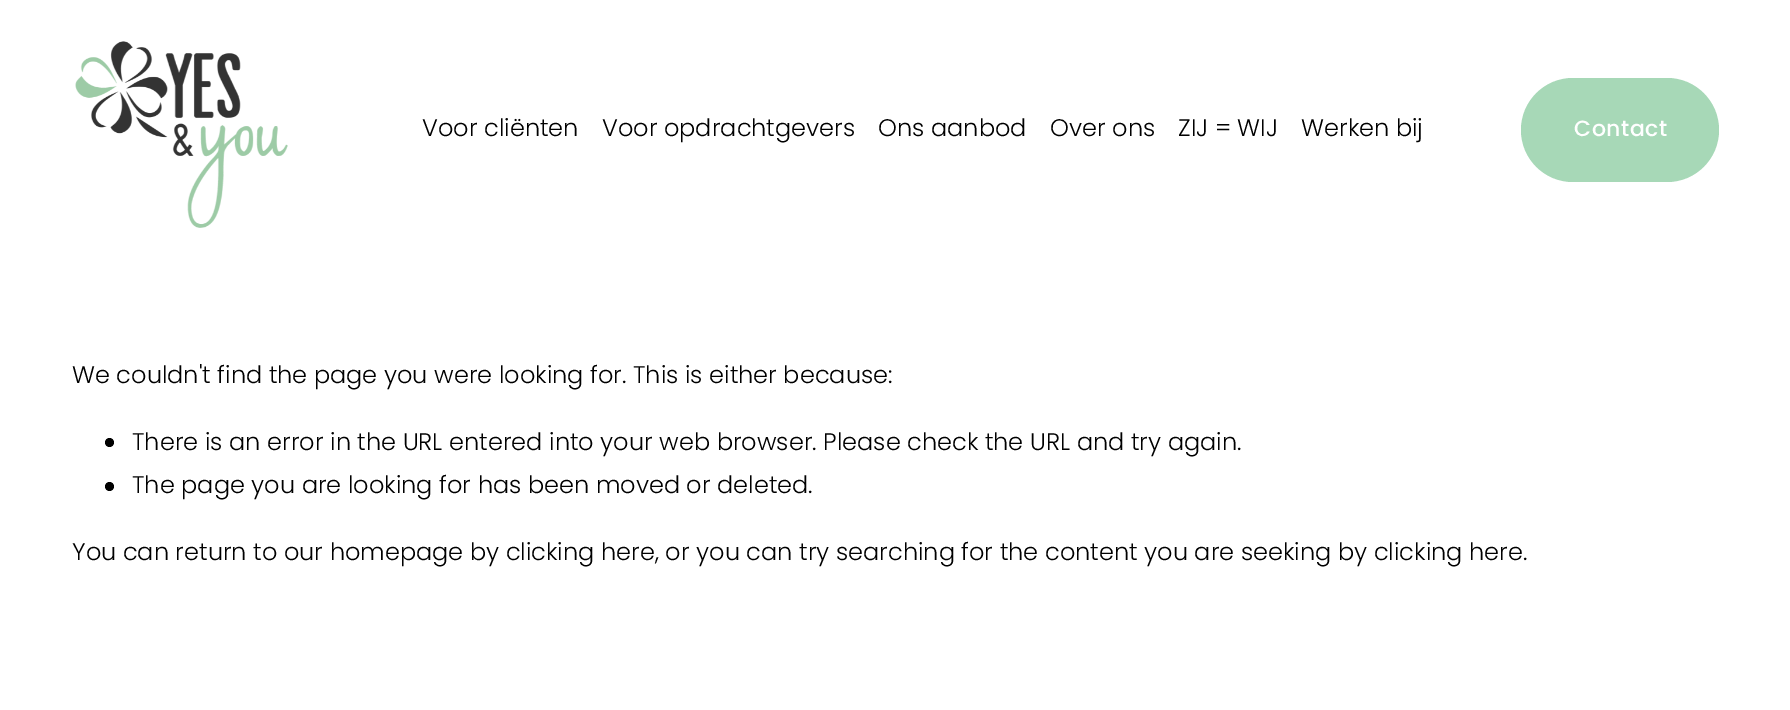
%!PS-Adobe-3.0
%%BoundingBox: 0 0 1790 710
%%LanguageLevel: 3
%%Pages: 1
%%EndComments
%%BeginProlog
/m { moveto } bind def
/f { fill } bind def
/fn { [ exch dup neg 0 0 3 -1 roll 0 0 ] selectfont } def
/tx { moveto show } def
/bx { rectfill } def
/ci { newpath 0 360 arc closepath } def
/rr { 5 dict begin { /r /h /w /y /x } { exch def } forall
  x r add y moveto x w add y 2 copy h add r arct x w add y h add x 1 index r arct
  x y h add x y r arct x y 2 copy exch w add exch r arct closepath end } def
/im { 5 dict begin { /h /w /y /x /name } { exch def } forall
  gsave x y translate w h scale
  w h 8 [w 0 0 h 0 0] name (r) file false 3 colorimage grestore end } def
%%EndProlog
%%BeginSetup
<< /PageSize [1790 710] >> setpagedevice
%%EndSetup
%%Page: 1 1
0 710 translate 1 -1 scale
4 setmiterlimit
1 setgray
0 0 1790 710 bx
(image0.raw) 75 41 213 187 im
/Poppins-Light 24 fn
0 setgray
(Voor cliënten) 422 136 tx
(Voor opdrachtgevers) 602 136 tx
(Ons aanbod) 878 136 tx
(Over ons) 1050 136 tx
(ZIJ = WIJ) 1178 136 tx
(Werken bij) 1301 136 tx
0.655 0.847 0.718 setrgbcolor
1521 78 198 104 52 rr f
/Poppins-Medium 22 fn
1 setgray
1574 136 m 0.5 0 (Contact) ashow
/Poppins-Light 24 fn
0 setgray
(We couldn't find the page you were looking for. This is either because:) 72 383 tx
109.5 442.5 4.5 ci f
(There is an error in the URL entered into your web browser. Please check the URL and try again.) 132 450 tx
109.5 486.5 4.5 ci f
(The page you are looking for has been moved or deleted.) 132 493 tx
(You can return to our homepage by clicking here, or you can try searching for the content you are seeking by clicking here.) 72 560 tx
showpage
%%EOF
